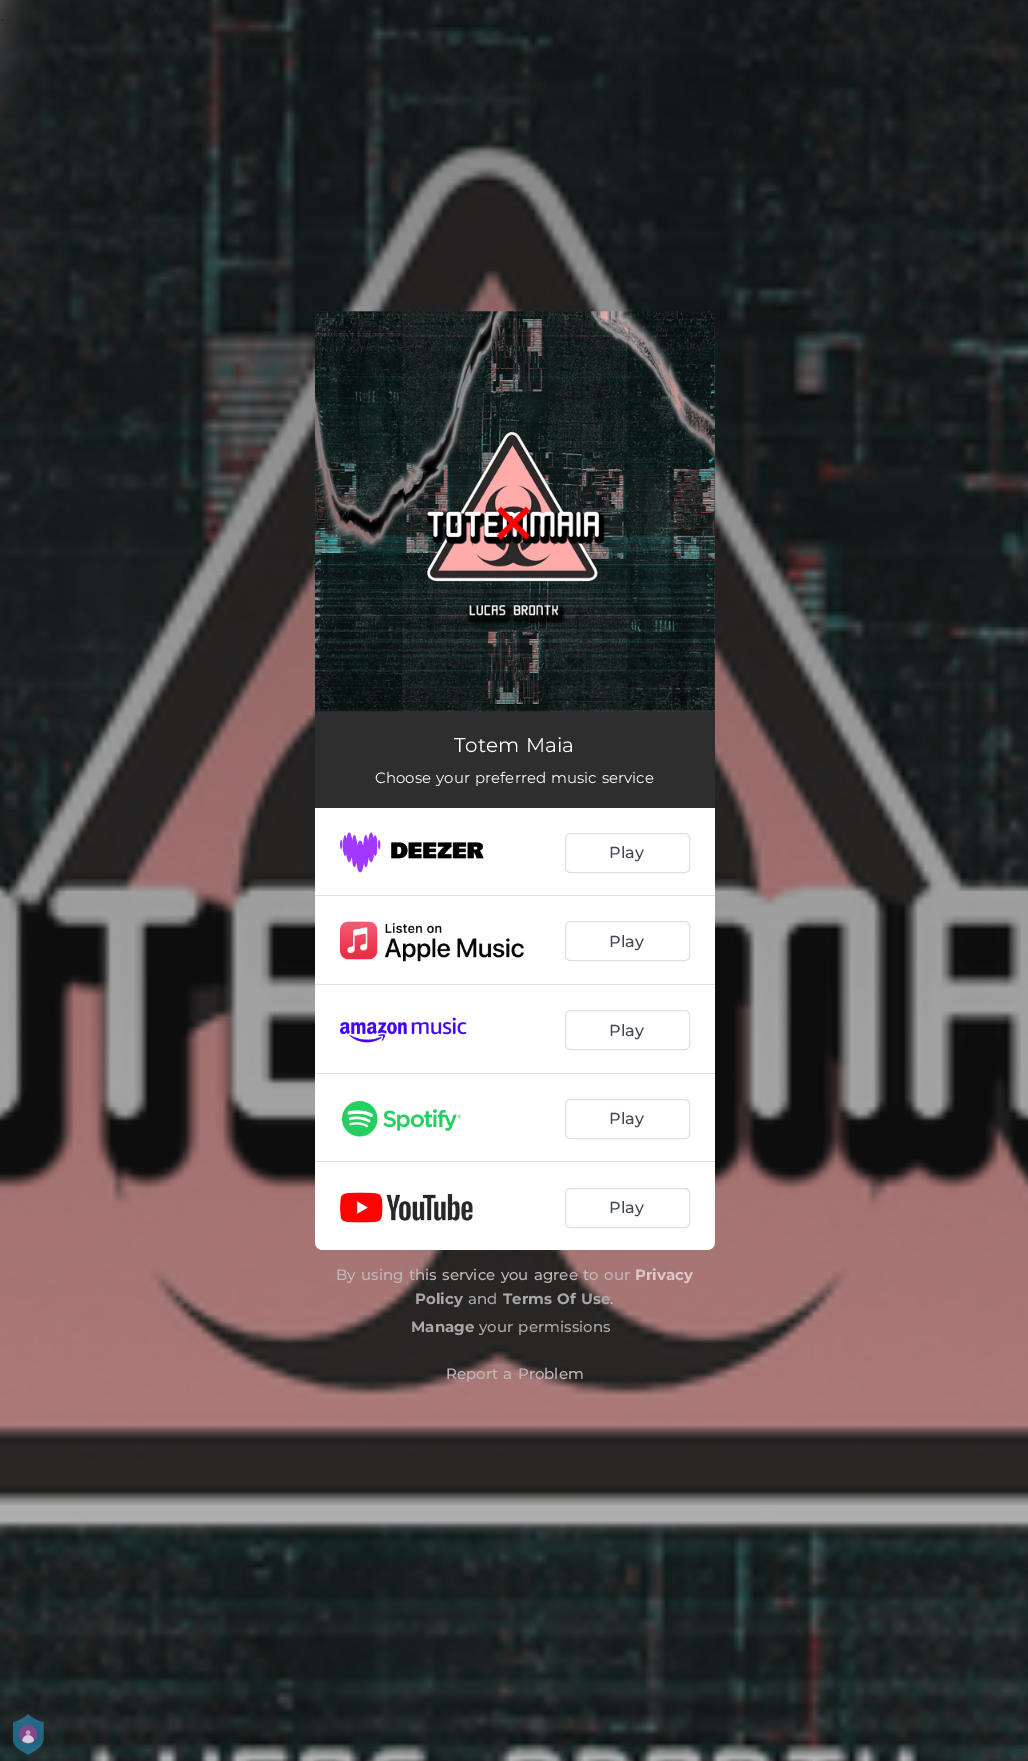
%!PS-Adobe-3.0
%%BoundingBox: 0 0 1028 1761
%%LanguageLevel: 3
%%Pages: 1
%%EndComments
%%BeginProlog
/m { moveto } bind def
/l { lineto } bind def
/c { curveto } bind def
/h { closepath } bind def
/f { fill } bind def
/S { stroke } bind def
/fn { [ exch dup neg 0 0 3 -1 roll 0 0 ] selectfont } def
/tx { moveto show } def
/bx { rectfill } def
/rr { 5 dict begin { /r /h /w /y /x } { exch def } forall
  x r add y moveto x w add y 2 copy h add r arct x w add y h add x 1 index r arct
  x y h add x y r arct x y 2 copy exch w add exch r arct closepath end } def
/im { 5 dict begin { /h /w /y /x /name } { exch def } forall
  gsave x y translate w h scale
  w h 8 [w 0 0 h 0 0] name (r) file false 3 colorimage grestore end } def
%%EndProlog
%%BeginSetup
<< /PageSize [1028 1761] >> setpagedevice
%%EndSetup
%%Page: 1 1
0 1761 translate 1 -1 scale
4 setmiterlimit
1 setgray
0 0 1028 1761 bx
(image0.raw) 0 0 1028 1761 im
0.18 setgray
315 711 400 97 bx
(image1.raw) 315 311 400 401 im
/Montserrat-Regular 20 fn
1 setgray
454 752 m 1.25 0 32 (Totem Maia) widthshow
/Montserrat-Regular 15 fn
375 783 m 1.25 0 32 (Choose your preferred music service) widthshow
315 808 m 715 808 l 715 1242 l 715 1246.5 711.5 1250 707 1250 c 323 1250 l 318.5 1250 315 1246.5 315 1242 c h f
0.882 0.882 0.894 setrgbcolor
315 895 400 1 bx
(image2.raw) 340 832 144 41 im
565.5 833.5 124 39 4.5 rr S
/Montserrat-Medium 16 fn
0.255 0.278 0.329 setrgbcolor
(Play) 609 858 tx
0.882 0.882 0.894 setrgbcolor
315 984 400 1 bx
(image3.raw) 340 921 184 41 im
565.5 921.5 124 39 4.5 rr S
0.255 0.278 0.329 setrgbcolor
(Play) 609 947 tx
0.882 0.882 0.894 setrgbcolor
315 1073 400 1 bx
(image4.raw) 340 1017 127 26 im
565.5 1010.5 124 39 4.5 rr S
0.255 0.278 0.329 setrgbcolor
(Play) 609 1036 tx
0.882 0.882 0.894 setrgbcolor
315 1161 400 1 bx
(image5.raw) 341 1100 121 37 im
565.5 1099.5 124 39 4.5 rr S
0.255 0.278 0.329 setrgbcolor
(Play) 609 1124 tx
(image6.raw) 340 1192 133 31 im
0.882 0.882 0.894 setrgbcolor
565.5 1188.5 124 39 4.5 rr S
0.255 0.278 0.329 setrgbcolor
(Play) 609 1213 tx
/Montserrat-Medium 15 fn
0.753 0.718 0.714 setrgbcolor
336 1280 m 1.25 0 32 (By using this service you agree to our) widthshow
/Montserrat-Bold 15 fn
0.863 0.784 0.784 setrgbcolor
(Privacy) 635 1280 tx
0.663 0.659 0.659 setrgbcolor
(Policy) 415 1304 tx
/Montserrat-Medium 15 fn
(and) 468 1304 tx
/Montserrat-Bold 15 fn
503 1304 m 1.25 0 32 (Terms Of Use) widthshow
/Montserrat-Medium 15 fn
0.827 0.765 0.765 setrgbcolor
(.) 610 1304 tx
/Montserrat-Bold 15 fn
0.663 0.659 0.659 setrgbcolor
(Manage) 411 1332 tx
/Montserrat-Medium 15 fn
479 1332 m 1.25 0 32 (your permissions) widthshow
0.753 0.718 0.714 setrgbcolor
446 1379 m 1.25 0 32 (Report a Problem) widthshow
(image7.raw) 13 1714 31 41 im
showpage
%%EOF
